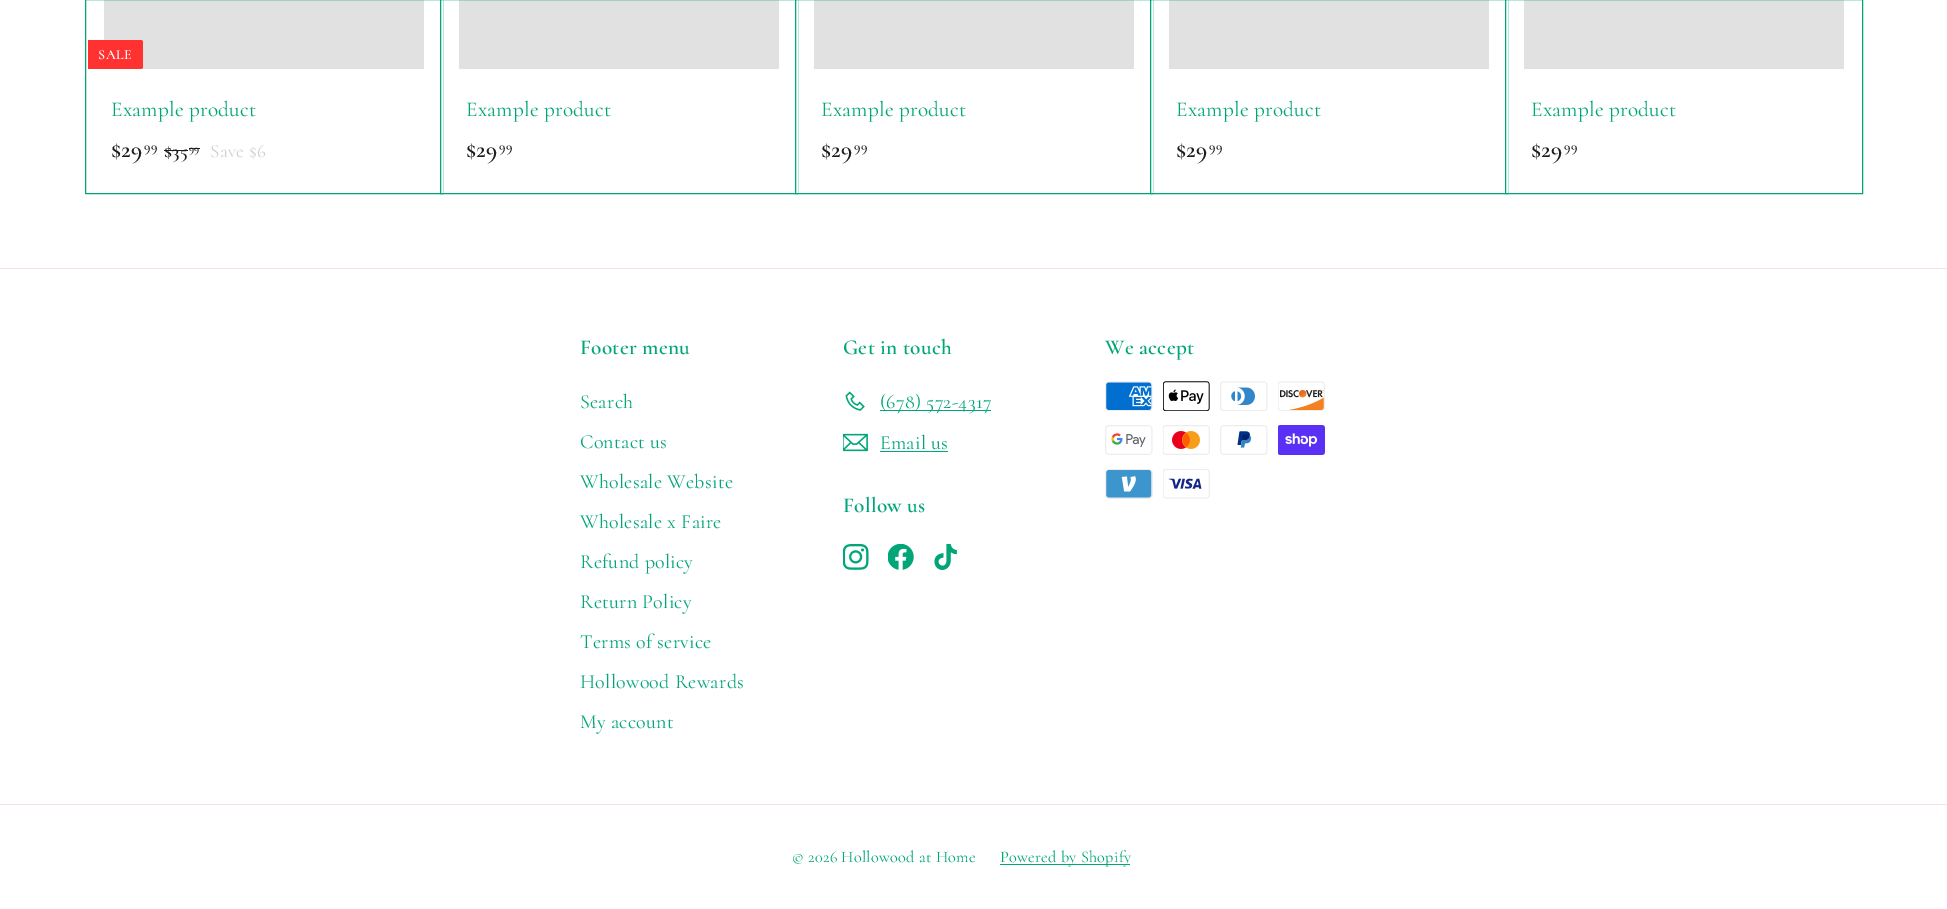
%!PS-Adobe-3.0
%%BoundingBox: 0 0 1947 909
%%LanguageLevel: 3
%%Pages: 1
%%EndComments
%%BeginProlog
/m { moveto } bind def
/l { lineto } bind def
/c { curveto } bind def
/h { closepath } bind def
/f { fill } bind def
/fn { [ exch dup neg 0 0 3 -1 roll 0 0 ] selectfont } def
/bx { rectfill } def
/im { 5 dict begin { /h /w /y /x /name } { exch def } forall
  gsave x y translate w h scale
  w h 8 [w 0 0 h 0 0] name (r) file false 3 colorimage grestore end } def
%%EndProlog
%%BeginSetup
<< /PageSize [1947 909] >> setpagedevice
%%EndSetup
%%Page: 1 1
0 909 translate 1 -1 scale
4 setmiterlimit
1 setgray
0 0 1947 909 bx
0.882 setgray
104 0 320 69 bx
0.11 0.114 0.114 setrgbcolor
164 150 24 1 bx
189 148 11 1 bx
0 0.651 0.471 setrgbcolor
85.5 -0.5 357 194 rectstroke
1 0.192 0.192 setrgbcolor
88 40 m 140.5 40 l 142 40 143 41 143 42.5 c 143 66.5 l 143 68 142 69 140.5 69 c 88 69 l h f
/Cormorant-SemiBold 14 fn
1 setgray
98 59 m 0.5 0 (SALE) ashow
/Cormorant-Regular 21.25 fn
0 0.651 0.471 setrgbcolor
111 116 m 0.25 0 (Example product) ashow
/Cormorant-SemiBold 24 fn
0.11 0.114 0.114 setrgbcolor
111 157 m 0.25 0 ($29) ashow
/Cormorant-SemiBold 14 fn
144 151 m 0.25 0 (99) ashow
/Cormorant-SemiBold 19 fn
164 157 m 0.25 0 ($35) ashow
/Cormorant-SemiBold 11 fn
189 152 m 0.25 0 (99) ashow
/Cormorant-Regular 19 fn
0.831 0.812 0.8 setrgbcolor
210 157 m 0.25 0 (Save $6) ashow
1 setgray
442 0 1 193 bx
0.882 setgray
459 0 320 69 bx
0 0.651 0.471 setrgbcolor
440.5 -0.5 357 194 rectstroke
/Cormorant-Regular 21.25 fn
466 116 m 0.25 0 (Example product) ashow
/Cormorant-SemiBold 24 fn
0.11 0.114 0.114 setrgbcolor
466 157 m 0.25 0 ($29) ashow
/Cormorant-SemiBold 14 fn
499 151 m 0.25 0 (99) ashow
1 setgray
797 0 1 193 bx
0.882 setgray
814 0 320 69 bx
0 0.651 0.471 setrgbcolor
795.5 -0.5 357 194 rectstroke
/Cormorant-Regular 21.25 fn
821 116 m 0.25 0 (Example product) ashow
/Cormorant-SemiBold 24 fn
0.11 0.114 0.114 setrgbcolor
821 157 m 0.25 0 ($29) ashow
/Cormorant-SemiBold 14 fn
854 151 m 0.25 0 (99) ashow
1 setgray
1152 0 1 193 bx
0.882 setgray
1169 0 320 69 bx
0 0.651 0.471 setrgbcolor
1150.5 -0.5 357 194 rectstroke
/Cormorant-Regular 21.25 fn
1176 116 m 0.25 0 (Example product) ashow
/Cormorant-SemiBold 24 fn
0.11 0.114 0.114 setrgbcolor
1176 157 m 0.25 0 ($29) ashow
/Cormorant-SemiBold 14 fn
1209 151 m 0.25 0 (99) ashow
1 setgray
1507 0 1 193 bx
0.882 setgray
1524 0 320 69 bx
0 0.651 0.471 setrgbcolor
1505.5 -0.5 357 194 rectstroke
/Cormorant-Regular 21.25 fn
1531 116 m 0.25 0 (Example product) ashow
/Cormorant-SemiBold 24 fn
0.11 0.114 0.114 setrgbcolor
1531 157 m 0.25 0 ($29) ashow
/Cormorant-SemiBold 14 fn
1564 151 m 0.25 0 (99) ashow
0.957 0.894 0.894 setrgbcolor
0 268 1947 1 bx
/Cormorant-SemiBold 21.25 fn
0 0.651 0.471 setrgbcolor
580 354 m 0.25 0 (Footer menu) ashow
/Cormorant-Regular 20 fn
580 408 m 0.25 0 (Search) ashow
580 448 m 0.25 0 (Contact us) ashow
580 488 m 0.25 0 (Wholesale Website) ashow
580 528 m 0.25 0 (Wholesale x Faire) ashow
580 568 m 0.25 0 (Refund policy) ashow
580 608 m 0.25 0 (Return Policy) ashow
580 648 m 0.25 0 (Terms of service) ashow
580 688 m 0.25 0 (Hollowood Rewards) ashow
580 728 m 0.25 0 (My account) ashow
/Cormorant-SemiBold 21.25 fn
843 354 m 0.25 0 (Get in touch) ashow
(image0.raw) 845 391 20 20 im
880 410 111 1 bx
/Cormorant-Regular 20 fn
880 408 m 0.25 0 (\(678\) 572-4317) ashow
(image1.raw) 843 433 25 19 im
880 449 m 0.25 0 (Email us) ashow
880 451 68 1 bx
/Cormorant-SemiBold 21.25 fn
843 512 m 0.25 0 (Follow us) ashow
(image2.raw) 843 544 26 26 im
(image3.raw) 888 544 26 26 im
(image4.raw) 934 544 23 26 im
1105 354 m 0.25 0 (We accept) ashow
(image5.raw) 1105 381 48 30 im
(image6.raw) 1163 381 47 30 im
(image7.raw) 1220 381 48 30 im
(image8.raw) 1278 381 47 30 im
(image9.raw) 1105 425 48 30 im
(image10.raw) 1163 425 47 30 im
(image11.raw) 1220 425 48 30 im
(image12.raw) 1278 425 47 30 im
(image13.raw) 1105 469 48 30 im
(image14.raw) 1163 469 47 30 im
0.957 0.894 0.894 setrgbcolor
0 804 1947 1 bx
/Cormorant-Regular 16.25 fn
0 0.651 0.471 setrgbcolor
792 862 m 0.25 0 (© 2026 Hollowood at Home) ashow
1000 864 130 1 bx
1000 862 m 0.25 0 (Powered by Shopify) ashow
showpage
%%EOF
